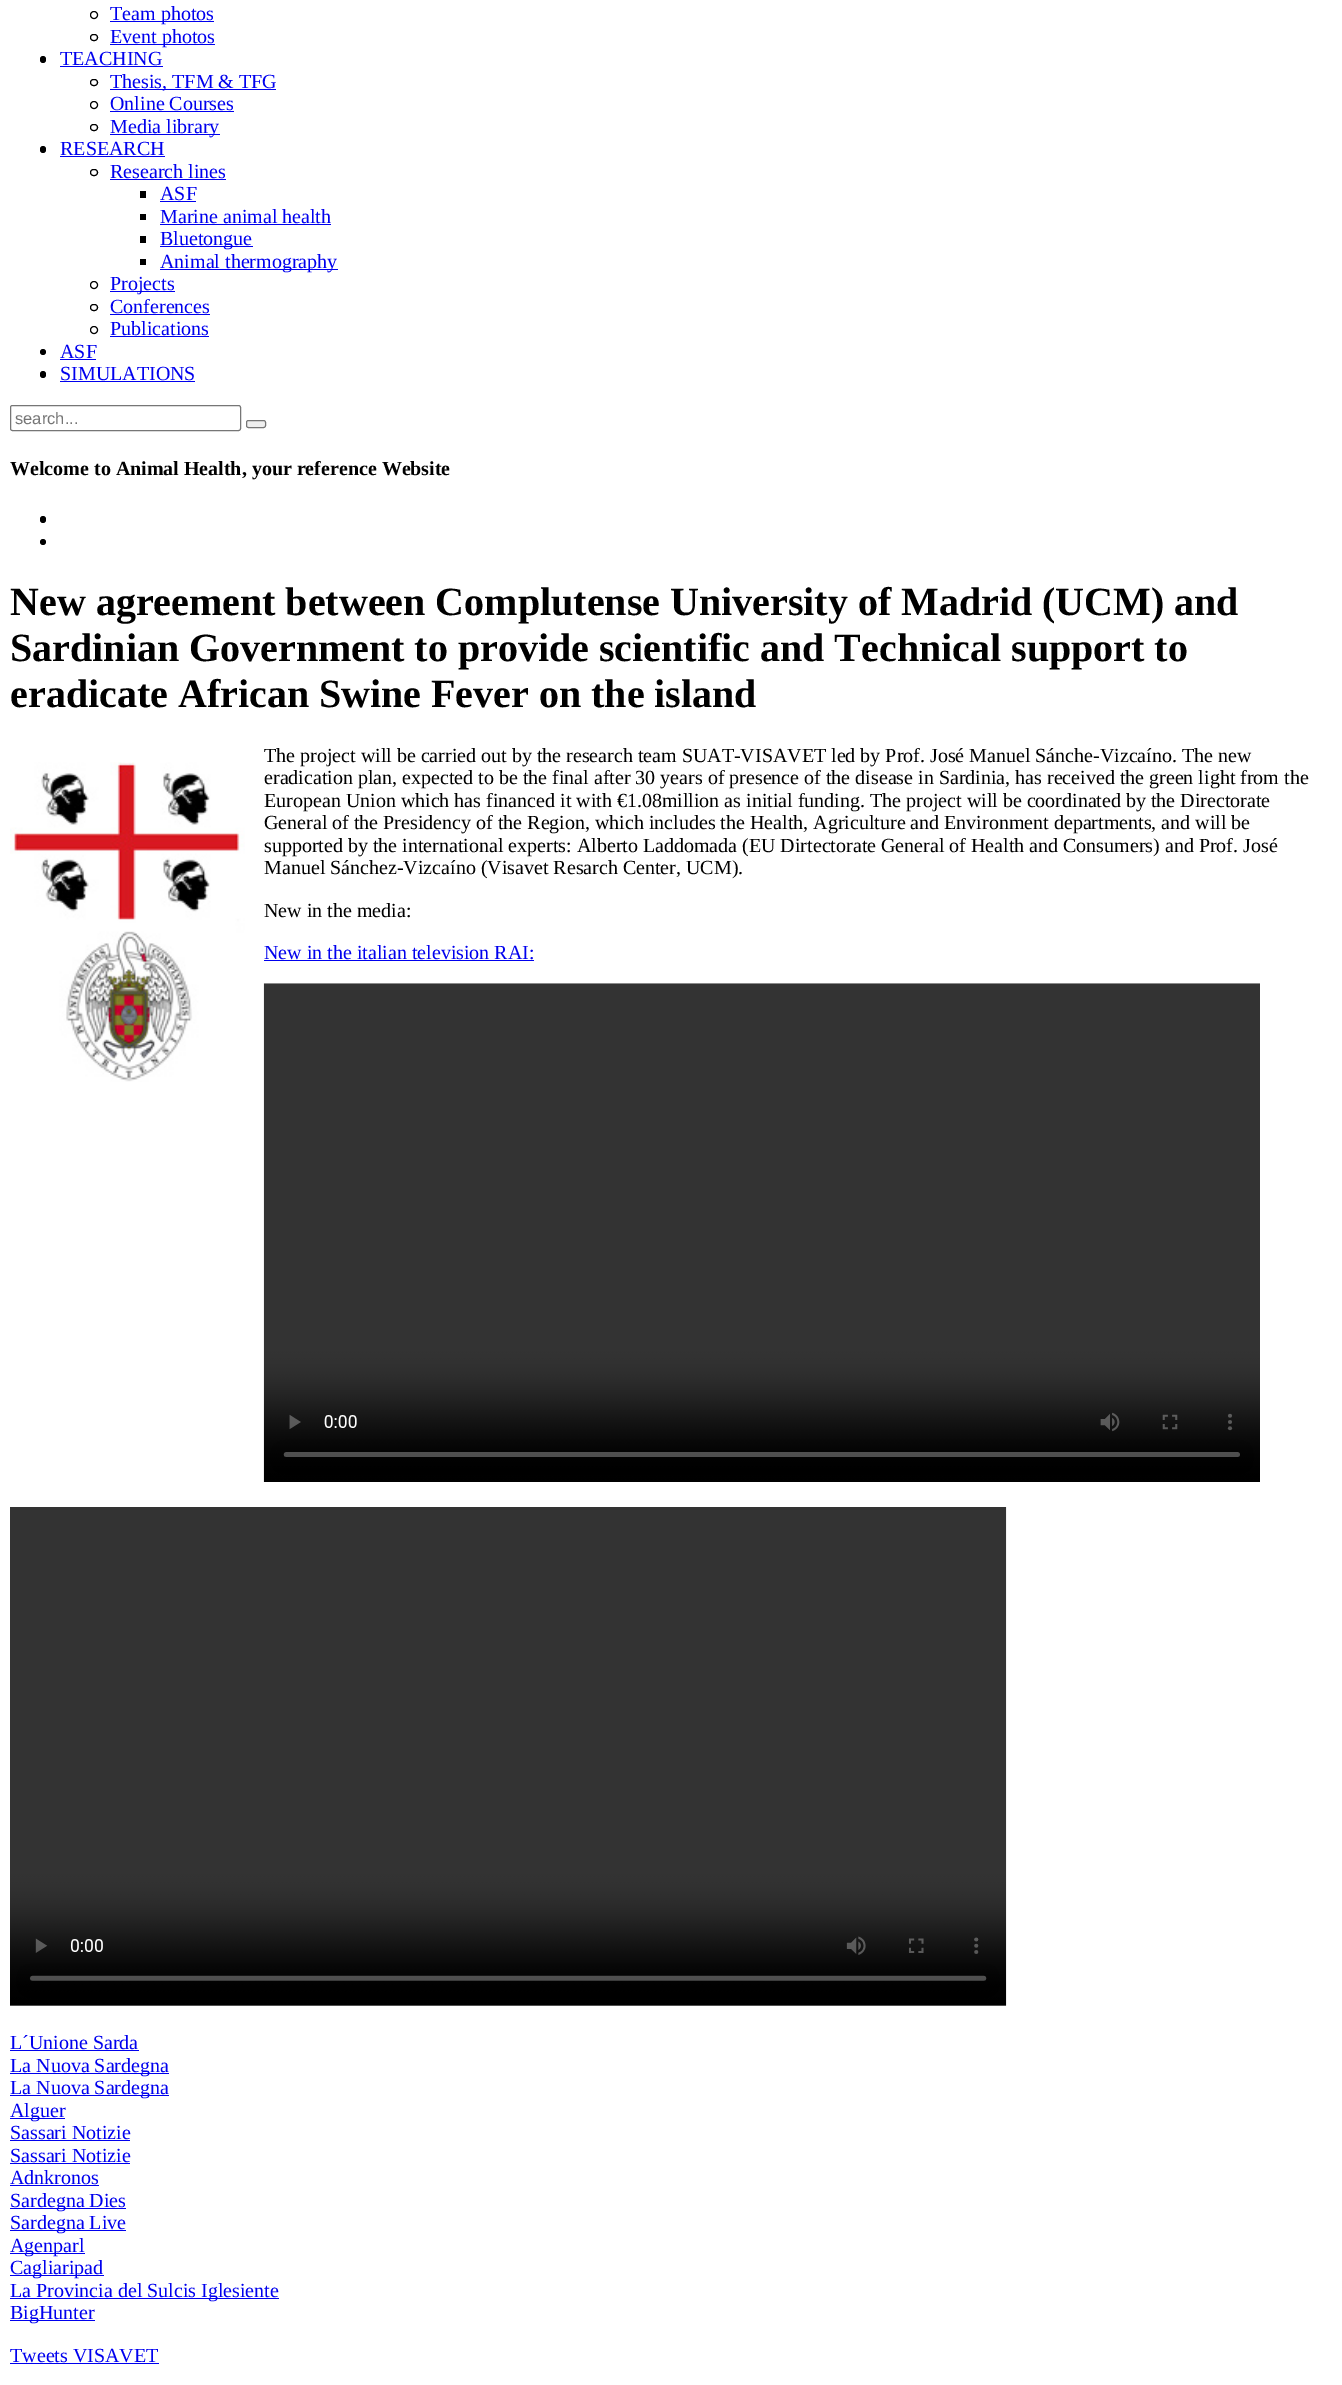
%!PS-Adobe-3.0
%%BoundingBox: 0 0 1342 2385
%%LanguageLevel: 3
%%Pages: 1
%%EndComments
%%BeginProlog
/f { fill } bind def
/S { stroke } bind def
/q { gsave } bind def
/Q { grestore } bind def
/fn { [ exch dup neg 0 0 3 -1 roll 0 0 ] selectfont } def
/tx { moveto show } def
/bx { rectfill } def
/ci { newpath 0 360 arc closepath } def
/rr { 5 dict begin { /r /h /w /y /x } { exch def } forall
  x r add y moveto x w add y 2 copy h add r arct x w add y h add x 1 index r arct
  x y h add x y r arct x y 2 copy exch w add exch r arct closepath end } def
/im { 5 dict begin { /h /w /y /x /name } { exch def } forall
  gsave x y translate w h scale
  w h 8 [w 0 0 h 0 0] name (r) file false 3 colorimage grestore end } def
%%EndProlog
%%BeginSetup
<< /PageSize [1342 2385] >> setpagedevice
%%EndSetup
%%Page: 1 1
0 2385 translate 1 -1 scale
4 setmiterlimit
1 setgray
0 0 1342 2385 bx
0 setgray
94 15 3.5 ci S
0 0 0.933 setrgbcolor
110 21 104 1 bx
/LiberationSerif-Regular 20 fn
(Team photos) 110 20 tx
0 setgray
90.5 34.5 7 6 3 rr S
0 0 0.933 setrgbcolor
110 44 105 1 bx
(Event photos) 110 43 tx
0 setgray
40 56 6 7 3 rr f
0 0 0.933 setrgbcolor
(TEACHING) 60 65 tx
60 66 103 1 bx
0 setgray
90.5 79.5 7 6 3 rr S
0 0 0.933 setrgbcolor
110 89 166 1 bx
(Thesis, TFM & TFG) 110 88 tx
0 setgray
94 105 3.5 ci S
0 0 0.933 setrgbcolor
(Online Courses) 110 110 tx
110 111 124 1 bx
0 setgray
90.5 124.5 7 6 3 rr S
0 0 0.933 setrgbcolor
110 134 110 1 bx
(Media library) 110 133 tx
0 setgray
40 146 6 7 3 rr f
0 0 0.933 setrgbcolor
(RESEARCH) 60 155 tx
60 156 105 1 bx
0 setgray
90.5 169.5 7 6 3 rr S
0 0 0.933 setrgbcolor
(Research lines) 110 178 tx
110 179 116 1 bx
0 setgray
140 191 6 7 bx
0 0 0.933 setrgbcolor
(ASF) 160 200 tx
160 201 36 1 bx
0 setgray
140 214 6 6 bx
0 0 0.933 setrgbcolor
(Marine animal health) 160 223 tx
160 224 171 1 bx
0 setgray
140 236 6 7 bx
0 0 0.933 setrgbcolor
160 246 93 1 bx
(Bluetongue) 160 245 tx
0 setgray
140 259 6 6 bx
0 0 0.933 setrgbcolor
160 269 178 1 bx
(Animal thermography) 160 268 tx
0 setgray
94 285 3.5 ci S
0 0 0.933 setrgbcolor
110 291 65 1 bx
(Projects) 110 290 tx
0 setgray
90.5 304.5 7 6 3 rr S
0 0 0.933 setrgbcolor
(Conferences) 110 313 tx
110 314 100 1 bx
0 setgray
94 330 3.5 ci S
0 0 0.933 setrgbcolor
(Publications) 110 335 tx
110 336 99 1 bx
0 setgray
43 352 3 ci f
0 0 0.933 setrgbcolor
(ASF) 60 358 tx
60 359 36 1 bx
0 setgray
40 371 6 7 3 rr f
0 0 0.933 setrgbcolor
(SIMULATIONS) 60 380 tx
60 381 135 1 bx
0.463 setgray
10.5 405.5 230 25 2 rr S
/LiberationSans-Regular 16.5 fn
0.459 setgray
(search...) 15 424 tx
0.937 setgray
246.5 420.5 19 7 2 rr q f Q
0.463 setgray
S
/LiberationSerif-Bold 20 fn
0 setgray
(Welcome to Animal Health, your reference Website) 10 475 tx
40 516 6 7 3 rr f
43 542 3 ci f
/LiberationSerif-Bold 40 fn
(New agreement between Complutense University of Madrid \(UCM\) and) 10 615 tx
(Sardinian Government to provide scientific and Technical support to) 10 661 tx
(eradicate African Swine Fever on the island) 10 707 tx
/LiberationSerif-Regular 20 fn
(The project will be carried out by the research team SUAT-VISAVET led by Prof. José Manuel Sánche-Vizcaíno. The new) 264 762 tx
(image0.raw) 10 762 235 320 im
(eradication plan, expected to be the final after 30 years of presence of the disease in Sardinia, has received the green light from the) 264 784 tx
(European Union which has financed it with €1.08million as initial funding. The project will be coordinated by the Directorate) 264 807 tx
(General of the Presidency of the Region, which includes the Health, Agriculture and Environment departments, and will be) 264 829 tx
(supported by the international experts: Alberto Laddomada \(EU Dirtectorate General of Health and Consumers\) and Prof. José) 264 852 tx
(Manuel Sánchez-Vizcaíno \(Visavet Resarch Center, UCM\).) 264 874 tx
(New in the media:) 264 917 tx
0 0 0.933 setrgbcolor
(New in the italian television RAI:) 264 959 tx
264 960 270 1 bx
(image1.raw) 263 983 997 499 im
(image2.raw) 10 1507 997 499 im
(L´Unione Sarda) 10 2049 tx
10 2050 129 1 bx
10 2073 159 1 bx
(La Nuova Sardegna) 10 2072 tx
10 2095 159 1 bx
(La Nuova Sardegna) 10 2094 tx
10 2118 55 1 bx
(Alguer) 10 2117 tx
(Sassari Notizie) 10 2139 tx
10 2140 120 1 bx
(Sassari Notizie) 10 2162 tx
10 2163 120 1 bx
(Adnkronos) 10 2184 tx
10 2185 89 1 bx
10 2208 116 1 bx
(Sardegna Dies) 10 2207 tx
10 2230 116 1 bx
(Sardegna Live) 10 2229 tx
10 2253 75 1 bx
(Agenparl) 10 2252 tx
10 2275 94 1 bx
(Cagliaripad) 10 2274 tx
10 2298 269 1 bx
(La Provincia del Sulcis Iglesiente) 10 2297 tx
10 2320 85 1 bx
(BigHunter) 10 2319 tx
(Tweets VISAVET) 10 2362 tx
10 2363 149 1 bx
showpage
%%EOF
